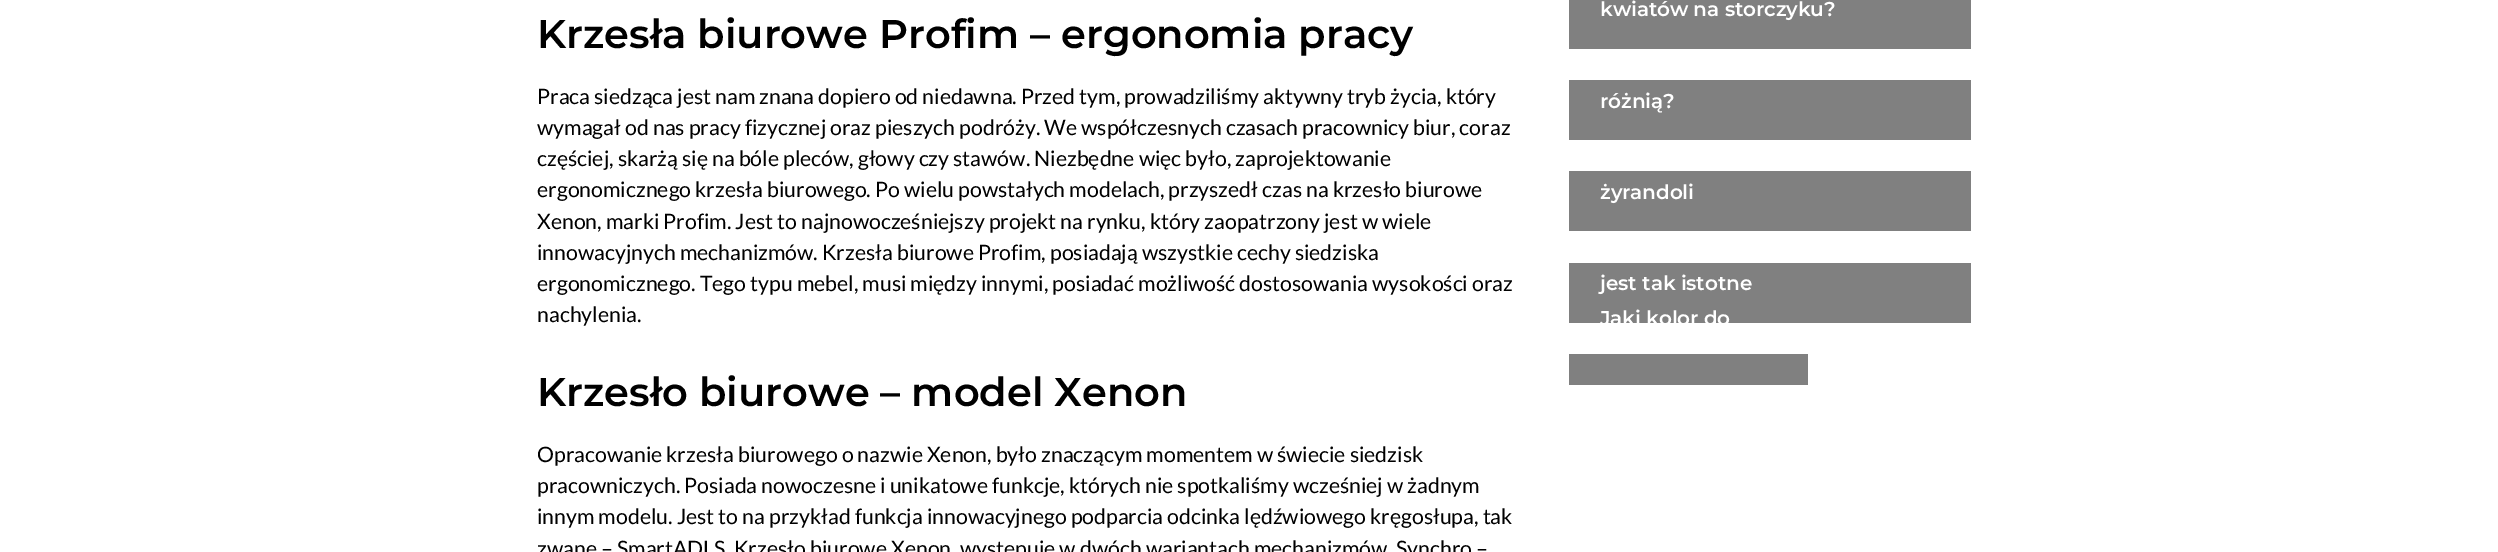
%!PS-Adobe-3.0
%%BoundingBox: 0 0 2498 552
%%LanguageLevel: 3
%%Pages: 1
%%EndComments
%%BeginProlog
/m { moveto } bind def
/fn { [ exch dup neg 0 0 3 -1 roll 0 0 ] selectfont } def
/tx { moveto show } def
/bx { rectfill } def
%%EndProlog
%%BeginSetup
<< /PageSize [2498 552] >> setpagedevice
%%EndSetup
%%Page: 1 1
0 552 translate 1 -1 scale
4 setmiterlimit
1 setgray
0 0 2498 552 bx
/Montserrat-SemiBold 40 fn
0 setgray
(Krzesła biurowe Profim – ergonomia pracy) 537 48 tx
/Lato-Regular 21.25 fn
(Praca siedząca jest nam znana dopiero od niedawna. Przed tym, prowadziliśmy aktywny tryb życia, który) 537 104 tx
(wymagał od nas pracy fizycznej oraz pieszych podróży. We współczesnych czasach pracownicy biur, coraz) 537 135 tx
(częściej, skarżą się na bóle pleców, głowy czy stawów. Niezbędne więc było, zaprojektowanie) 537 166 tx
(ergonomicznego krzesła biurowego. Po wielu powstałych modelach, przyszedł czas na krzesło biurowe) 537 197 tx
(Xenon, marki Profim. Jest to najnowocześniejszy projekt na rynku, który zaopatrzony jest w wiele) 537 229 tx
(innowacyjnych mechanizmów. Krzesła biurowe Profim, posiadają wszystkie cechy siedziska) 537 260 tx
(ergonomicznego. Tego typu mebel, musi między innymi, posiadać możliwość dostosowania wysokości oraz) 537 291 tx
(nachylenia.) 537 322 tx
/Montserrat-SemiBold 40 fn
(Krzesło biurowe – model Xenon) 537 406 tx
/Lato-Regular 21.25 fn
(Opracowanie krzesła biurowego o nazwie Xenon, było znaczącym momentem w świecie siedzisk) 537 462 tx
(pracowniczych. Posiada nowoczesne i unikatowe funkcje, których nie spotkaliśmy wcześniej w żadnym) 537 493 tx
(innym modelu. Jest to na przykład funkcja innowacyjnego podparcia odcinka lędźwiowego kręgosłupa, tak) 537 524 tx
(zwane – SmartADLS. Krzesło biurowe Xenon, występuje w dwóch wariantach mechanizmów. Synchro –) 537 556 tx
0.502 setgray
1569 0 402 49 bx
/Montserrat-SemiBold 20 fn
1 setgray
1600 16 m -0.1 0 (kwiatów na storczyku?) ashow
0.502 setgray
1569 80 402 60 bx
1 setgray
1600 108 m -0.1 0 (różnią?) ashow
0.502 setgray
1569 171 402 60 bx
1 setgray
1600 199 m -0.1 0 (żyrandoli) ashow
0.502 setgray
1569 263 402 60 bx
1 setgray
1600 290 m -0.1 0 (jest tak istotne) ashow
1600 325 m -0.1 0 (Jaki kolor do) ashow
0.502 setgray
1569 354 239 31 bx
showpage
%%EOF
